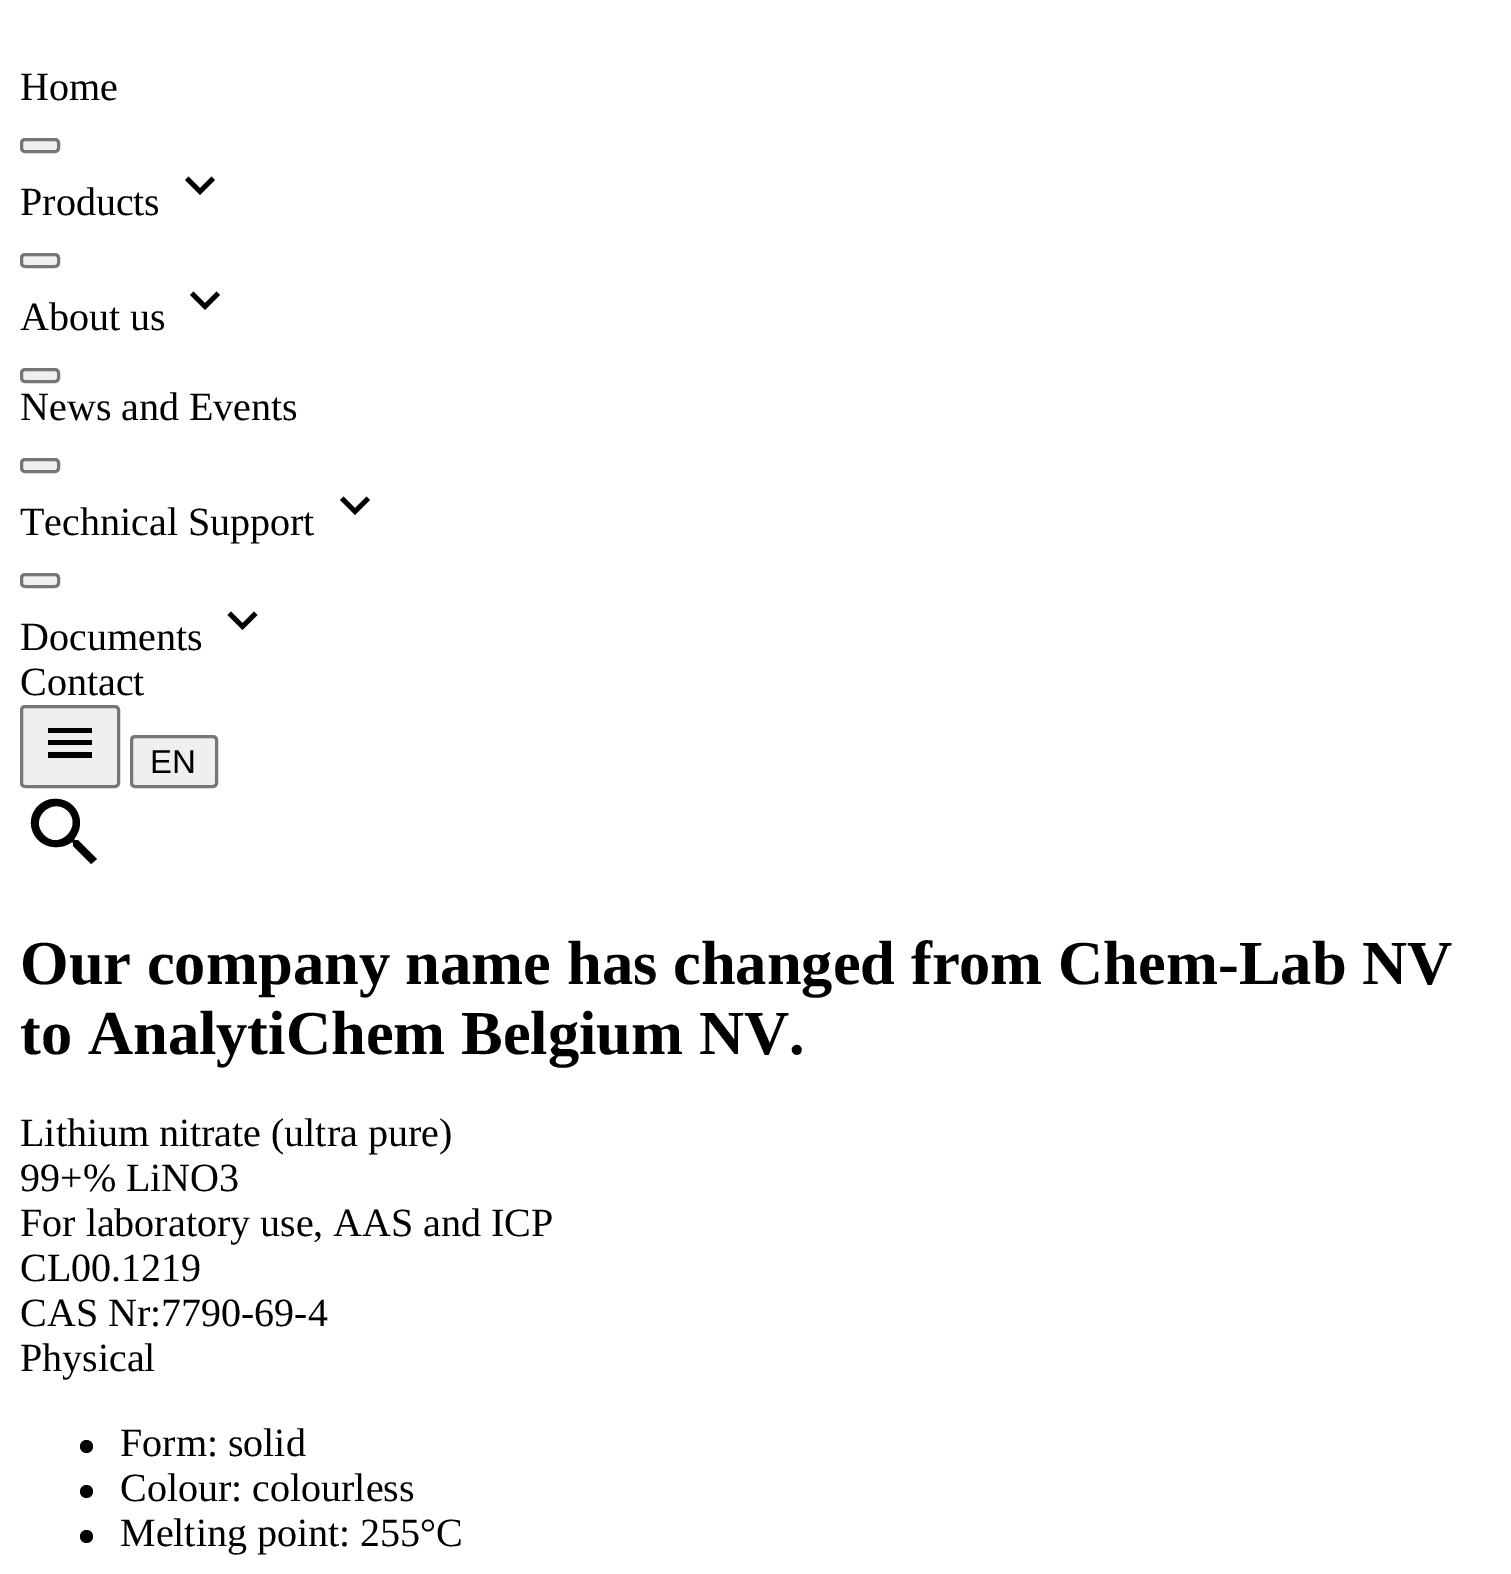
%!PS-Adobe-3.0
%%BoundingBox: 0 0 1511 1574
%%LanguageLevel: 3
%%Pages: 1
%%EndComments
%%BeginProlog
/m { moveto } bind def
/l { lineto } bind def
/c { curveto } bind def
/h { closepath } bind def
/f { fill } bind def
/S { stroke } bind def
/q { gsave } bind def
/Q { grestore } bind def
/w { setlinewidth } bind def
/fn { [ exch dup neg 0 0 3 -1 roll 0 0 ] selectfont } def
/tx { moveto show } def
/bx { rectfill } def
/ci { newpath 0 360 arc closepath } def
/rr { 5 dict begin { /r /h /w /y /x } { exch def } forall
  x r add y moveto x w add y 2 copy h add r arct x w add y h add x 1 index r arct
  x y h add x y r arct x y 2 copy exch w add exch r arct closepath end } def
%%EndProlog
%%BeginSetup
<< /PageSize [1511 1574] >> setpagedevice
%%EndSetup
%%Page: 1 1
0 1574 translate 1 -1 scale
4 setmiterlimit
1 setgray
0 0 1511 1574 bx
/LiberationSerif-Regular 40 fn
0 setgray
(Home) 20 100 tx
0.937 setgray
21.5 139.5 37 12 3.5 rr q f Q
0.463 setgray
3 w
S
0 setgray
(Products) 20 215 tx
211.5 176.5 m 215 180 l 200 195 l 185 180 l 188.5 176.5 l 200 188 l h f
0.937 setgray
21.5 254.5 37 12 3.5 rr q f Q
0.463 setgray
S
0 setgray
(About us) 20 330 tx
216.5 291.5 m 220 295 l 205 310 l 190 295 l 193.5 291.5 l 205 303 l h f
0.937 setgray
21.5 369.5 37 12 3.5 rr q f Q
0.463 setgray
S
0 setgray
(News and Events) 20 420 tx
0.937 setgray
21.5 459.5 37 12 3.5 rr q f Q
0.463 setgray
S
0 setgray
(Technical Support) 20 535 tx
366.5 496.5 m 370 500 l 355 515 l 340 500 l 343.5 496.5 l 355 508 l h f
0.937 setgray
21.5 574.5 37 12 3.5 rr q f Q
0.463 setgray
S
0 setgray
254 611.5 m 257.5 615 l 242.5 630 l 227.5 615 l 231 611.5 l 242.5 623 l h f
(Documents) 20 650 tx
(Contact) 20 695 tx
0.937 setgray
21.5 706.5 97 80 3.5 rr q f Q
0.463 setgray
S
0 setgray
48 728 m 92 728 l 92 733 l 48 733 l h 48 745 m 48 740 l 92 740 l 92 745 l h 48 758 m 48 752 l 92 752 l 92 758 l h f
0.937 setgray
131.5 736.5 85 50 3.5 rr q f Q
0.463 setgray
S
/LiberationSans-Regular 33 fn
0 setgray
(EN) 150 773 tx
44 835 m 59 851 83 827 68 811 c 52 796 28 819 44 835 c h 78 840 m 97 859 l 91 864 l 73 846 l 73 843 l 72 842 l 68 845 63 847 58 847 c 35 849 22 822 38 806 c 42 802 48 799 53 799 c 76 797 88 822 74 839 c 75 840 l h f
/LiberationSerif-Bold 62.5 fn
(Our company name has changed from Chem-Lab NV) 20 984 tx
(to AnalytiChem Belgium NV.) 20 1054 tx
/LiberationSerif-Regular 40 fn
(Lithium nitrate \(ultra pure\)) 20 1146 tx
(99+% LiNO3) 20 1191 tx
(For laboratory use, AAS and ICP) 20 1236 tx
(CL00.1219) 20 1281 tx
(CAS Nr:7790-69-4) 20 1326 tx
(Physical) 20 1371 tx
86.5 1446.5 6.5 ci f
(Form: solid) 120 1456 tx
86.5 1491.5 6.5 ci f
(Colour: colourless) 120 1501 tx
86.5 1536.5 6.5 ci f
(Melting point: 255°C) 120 1546 tx
showpage
%%EOF
